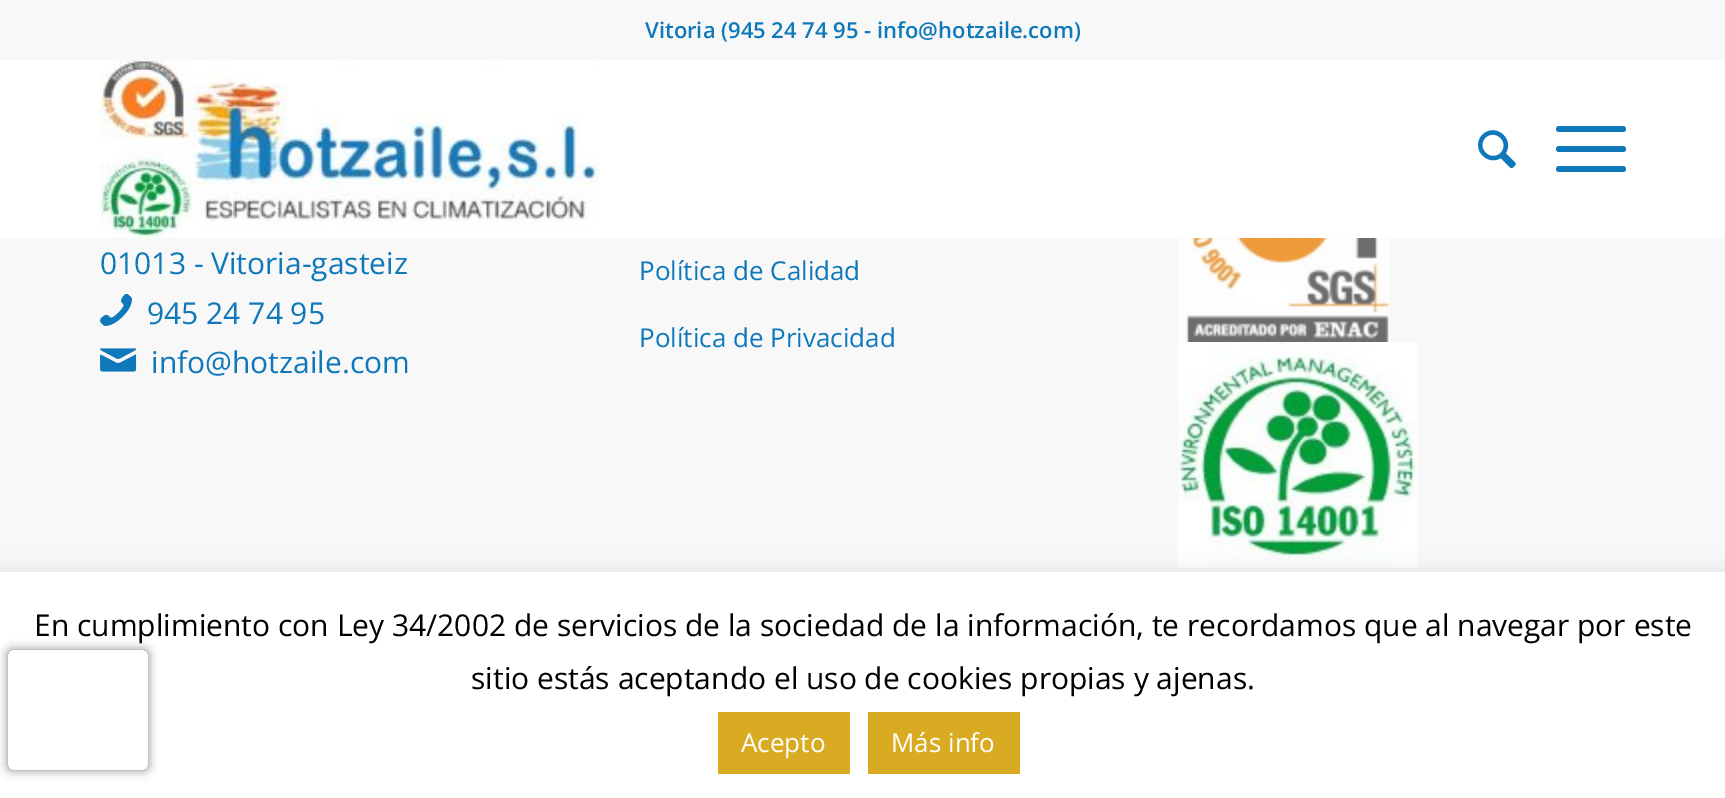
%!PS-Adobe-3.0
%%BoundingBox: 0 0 1725 798
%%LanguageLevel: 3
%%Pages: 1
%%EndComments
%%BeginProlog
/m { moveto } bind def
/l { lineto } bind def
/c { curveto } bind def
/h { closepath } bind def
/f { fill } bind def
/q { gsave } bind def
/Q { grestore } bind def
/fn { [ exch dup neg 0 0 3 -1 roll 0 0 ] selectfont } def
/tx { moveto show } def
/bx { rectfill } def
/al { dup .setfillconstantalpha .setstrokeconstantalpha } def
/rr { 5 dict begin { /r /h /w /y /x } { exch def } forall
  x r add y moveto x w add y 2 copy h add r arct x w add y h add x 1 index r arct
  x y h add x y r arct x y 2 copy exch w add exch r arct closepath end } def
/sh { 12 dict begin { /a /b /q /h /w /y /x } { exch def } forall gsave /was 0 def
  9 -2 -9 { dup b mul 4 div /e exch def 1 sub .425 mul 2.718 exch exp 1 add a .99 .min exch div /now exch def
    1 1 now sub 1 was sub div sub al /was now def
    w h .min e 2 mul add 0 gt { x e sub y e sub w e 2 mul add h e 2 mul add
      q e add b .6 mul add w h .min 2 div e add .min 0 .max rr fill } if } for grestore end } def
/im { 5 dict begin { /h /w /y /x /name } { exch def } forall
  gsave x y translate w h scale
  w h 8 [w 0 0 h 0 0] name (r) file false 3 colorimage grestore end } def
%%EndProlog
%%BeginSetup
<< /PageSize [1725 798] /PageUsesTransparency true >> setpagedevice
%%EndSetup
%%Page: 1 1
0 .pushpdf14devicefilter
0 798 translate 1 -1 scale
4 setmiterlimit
0.973 setgray
0 0 1725 798 bx
/OpenSans-SemiBold 22 fn
0.055 0.471 0.729 setrgbcolor
(Vitoria \(945 24 74 95 - info@hotzaile.com\)) 645 38 tx
1 setgray
0 60 1725 178 bx
(image0.raw) 100 60 500 178 im
(image1.raw) 1478 130 38 39 im
0.055 0.471 0.729 setrgbcolor
1556 146 70 6 3 rr f
1556 126 70 6 3 rr f
1556 166 70 6 3 rr f
/OpenSans-Regular 30 fn
(01013 - Vitoria-gasteiz) 100 274 tx
(image2.raw) 100 294 32 32 im
(945 24 74 95) 147 324 tx
(image3.raw) 100 348 37 24 im
(info@hotzaile.com) 151 373 tx
/OpenSans-Regular 26 fn
(Política de Calidad) 639 280 tx
(Política de Privacidad) 639 347 tx
(image4.raw) 1178 238 212 104 im
(image5.raw) 1178 342 240 226 im
0.675 0.671 0.671 setrgbcolor
0 570 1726 226 0 10 0.3 sh
1 setgray
0 572 1725 226 bx
/OpenSans-Regular 30 fn
0 setgray
(En cumplimiento con Ley 34/2002 de servicios de la sociedad de la información, te recordamos que al navegar por este) 34 636 tx
(sitio estás aceptando el uso de cookies propias y ajenas.) 471 689 tx
0.851 0.671 0.133 setrgbcolor
718 712 132 62 bx
/OpenSans-Regular 26 fn
1 setgray
(Acepto) 741 752 tx
0.851 0.671 0.133 setrgbcolor
868 712 152 62 bx
1 setgray
(Más info) 891 752 tx
q
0 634 m 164 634 l 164 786 l 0 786 l h 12 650 m 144 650 l 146 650 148 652 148 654 c 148 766 l 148 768 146 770 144 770 c 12 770 l 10 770 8 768 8 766 c 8 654 l 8 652 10 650 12 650 c h eoclip newpath
0.502 setgray
8 650 140 120 4 5 1 sh
Q
.poppdf14devicefilter showpage
%%EOF
